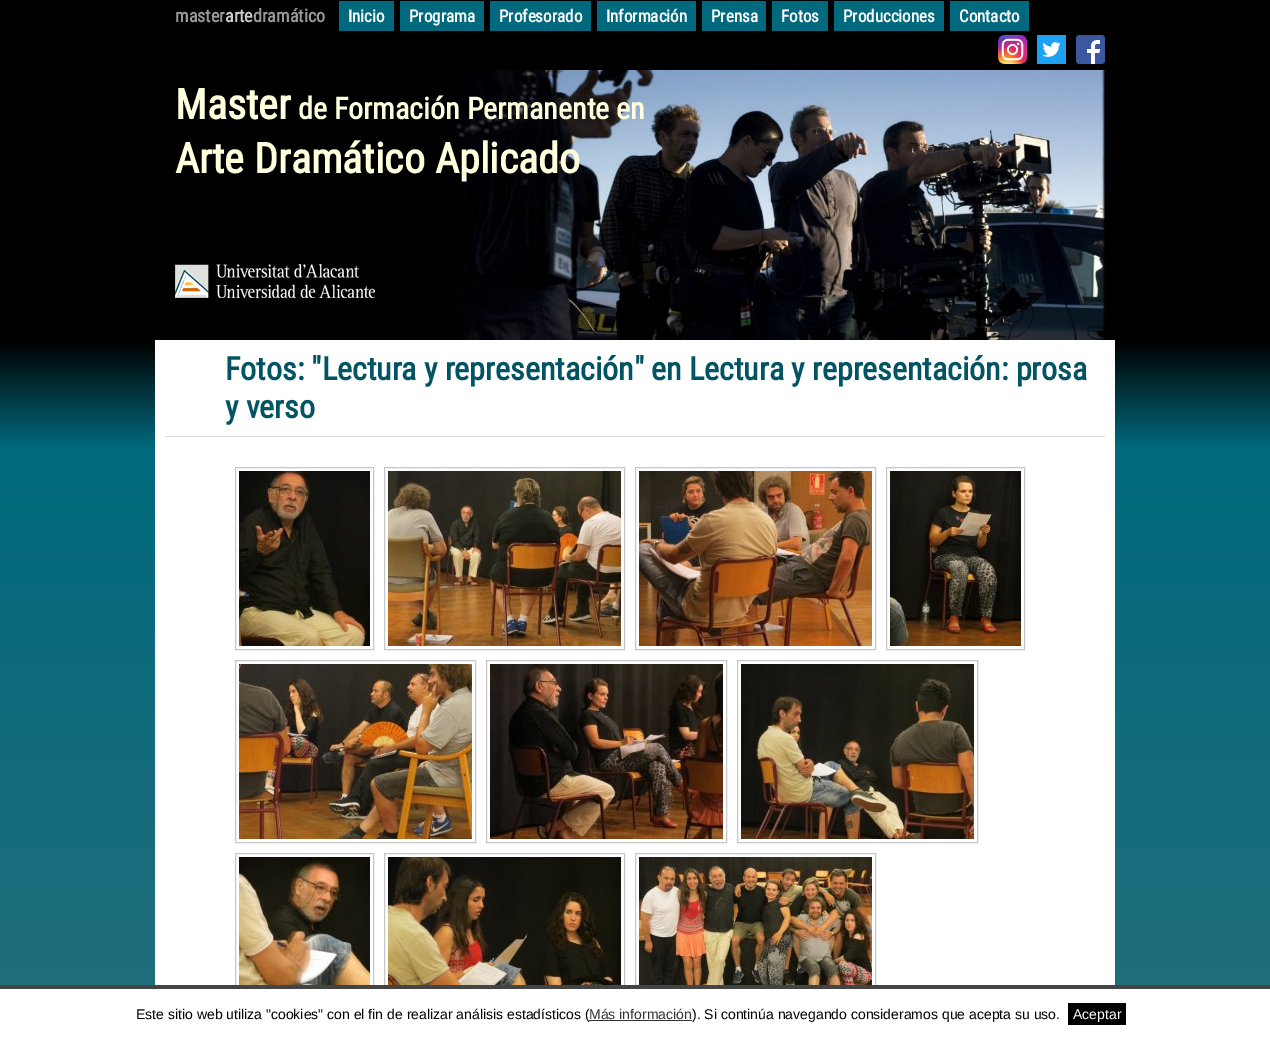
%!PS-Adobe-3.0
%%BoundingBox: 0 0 1270 1040
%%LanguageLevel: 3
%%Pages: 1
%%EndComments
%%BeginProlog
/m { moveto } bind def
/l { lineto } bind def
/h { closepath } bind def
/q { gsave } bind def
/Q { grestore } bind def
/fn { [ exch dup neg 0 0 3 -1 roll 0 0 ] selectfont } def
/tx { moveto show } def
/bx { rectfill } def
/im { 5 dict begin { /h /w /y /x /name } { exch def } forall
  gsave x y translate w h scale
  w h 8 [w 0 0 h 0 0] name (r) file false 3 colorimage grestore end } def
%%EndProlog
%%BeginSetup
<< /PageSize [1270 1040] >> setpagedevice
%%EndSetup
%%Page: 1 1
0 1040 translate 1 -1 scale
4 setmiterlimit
0 setgray
0 0 1270 1040 bx
/RobotoCondensed-Bold 18 fn
0.6 setgray
(master) 175 22 tx
0.8 setgray
(arte) 225 22 tx
0.6 setgray
(dramático) 253 22 tx
0 0.412 0.49 setrgbcolor
339 1 55 30 bx
/RobotoCondensed-Bold 17 fn
1 setgray
(Inicio) 348 22 tx
0 0.412 0.49 setrgbcolor
400 1 84 30 bx
1 setgray
(Programa) 409 22 tx
0 0.412 0.49 setrgbcolor
490 1 101 30 bx
1 setgray
(Profesorado) 499 22 tx
0 0.412 0.49 setrgbcolor
597 1 99 30 bx
1 setgray
(Información) 606 22 tx
0 0.412 0.49 setrgbcolor
702 1 64 30 bx
1 setgray
(Prensa) 711 22 tx
0 0.412 0.49 setrgbcolor
772 1 56 30 bx
1 setgray
(Fotos) 781 22 tx
0 0.412 0.49 setrgbcolor
834 1 110 30 bx
1 setgray
(Producciones) 843 22 tx
0 0.412 0.49 setrgbcolor
950 1 79 30 bx
1 setgray
(Contacto) 959 22 tx
(image0.raw) 998 35 29 29 im
(image1.raw) 1037 35 29 29 im
(image2.raw) 1076 35 29 29 im
/RobotoCondensed-Bold 42 fn
1 1 0.867 setrgbcolor
(Master) 175 119 tx
(image3.raw) 455 70 650 270 im
/RobotoCondensed-Bold 30 fn
(de Formación Permanente en) 298 119 tx
/RobotoCondensed-Bold 42 fn
(Arte Dramático Aplicado) 175 173 tx
(image4.raw) 175 264 200 34 im
q 0 342 m 1270 342 l 1270 985 l 0 985 l h clip newpath
<< /ShadingType 2 /ColorSpace /DeviceRGB /Coords [635 340 635 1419] /Extend [true true] /Function << /FunctionType 3 /Domain [0 1] /Functions [<< /FunctionType 2 /Domain [0 1] /C0 [0 0 0] /C1 [0 0.412 0.49] /N 1 >> << /FunctionType 2 /Domain [0 1] /C0 [0 0.412 0.49] /C1 [0.227 0.443 0.478] /N 1 >>] /Bounds [0.1] /Encode [0 1 0 1] >> >> shfill Q
1 setgray
155 340 960 645 bx
/RobotoCondensed-Bold 32 fn
0.004 0.329 0.388 setrgbcolor
(Fotos: "Lectura y representación" en Lectura y representación: prosa) 225 380 tx
(y verso) 225 418 tx
0.867 setgray
165 436 940 1 bx
0.78 setgray
235.5 467.5 138 182 rectstroke
(image5.raw) 239 471 131 175 im
384.5 467.5 240 182 rectstroke
(image6.raw) 388 471 233 175 im
635.5 467.5 240 182 rectstroke
(image7.raw) 639 471 233 175 im
886.5 467.5 138 182 rectstroke
(image8.raw) 890 471 131 175 im
235.5 660.5 240 182 rectstroke
(image9.raw) 239 664 233 175 im
486.5 660.5 240 182 rectstroke
(image10.raw) 490 664 233 175 im
737.5 660.5 240 182 rectstroke
(image11.raw) 741 664 233 175 im
235.5 853.5 138 182 rectstroke
(image12.raw) 239 857 131 128 im
384.5 853.5 240 182 rectstroke
(image13.raw) 388 857 233 128 im
635.5 853.5 240 182 rectstroke
(image14.raw) 639 857 233 128 im
1 setgray
0 989 1270 51 bx
0.267 setgray
0 985 1270 4 bx
/LiberationSans-Regular 14 fn
0 setgray
(Este sitio web utiliza "cookies" con el fin de realizar análisis estadísticos \() 136 1019 tx
0.2 setgray
(Más información) 589 1019 tx
589 1020 103 1 bx
0 setgray
(\). Si continúa navegando consideramos que acepta su uso.) 692 1019 tx
1068 1003 58 22 bx
1 setgray
(Aceptar) 1073 1019 tx
showpage
%%EOF
